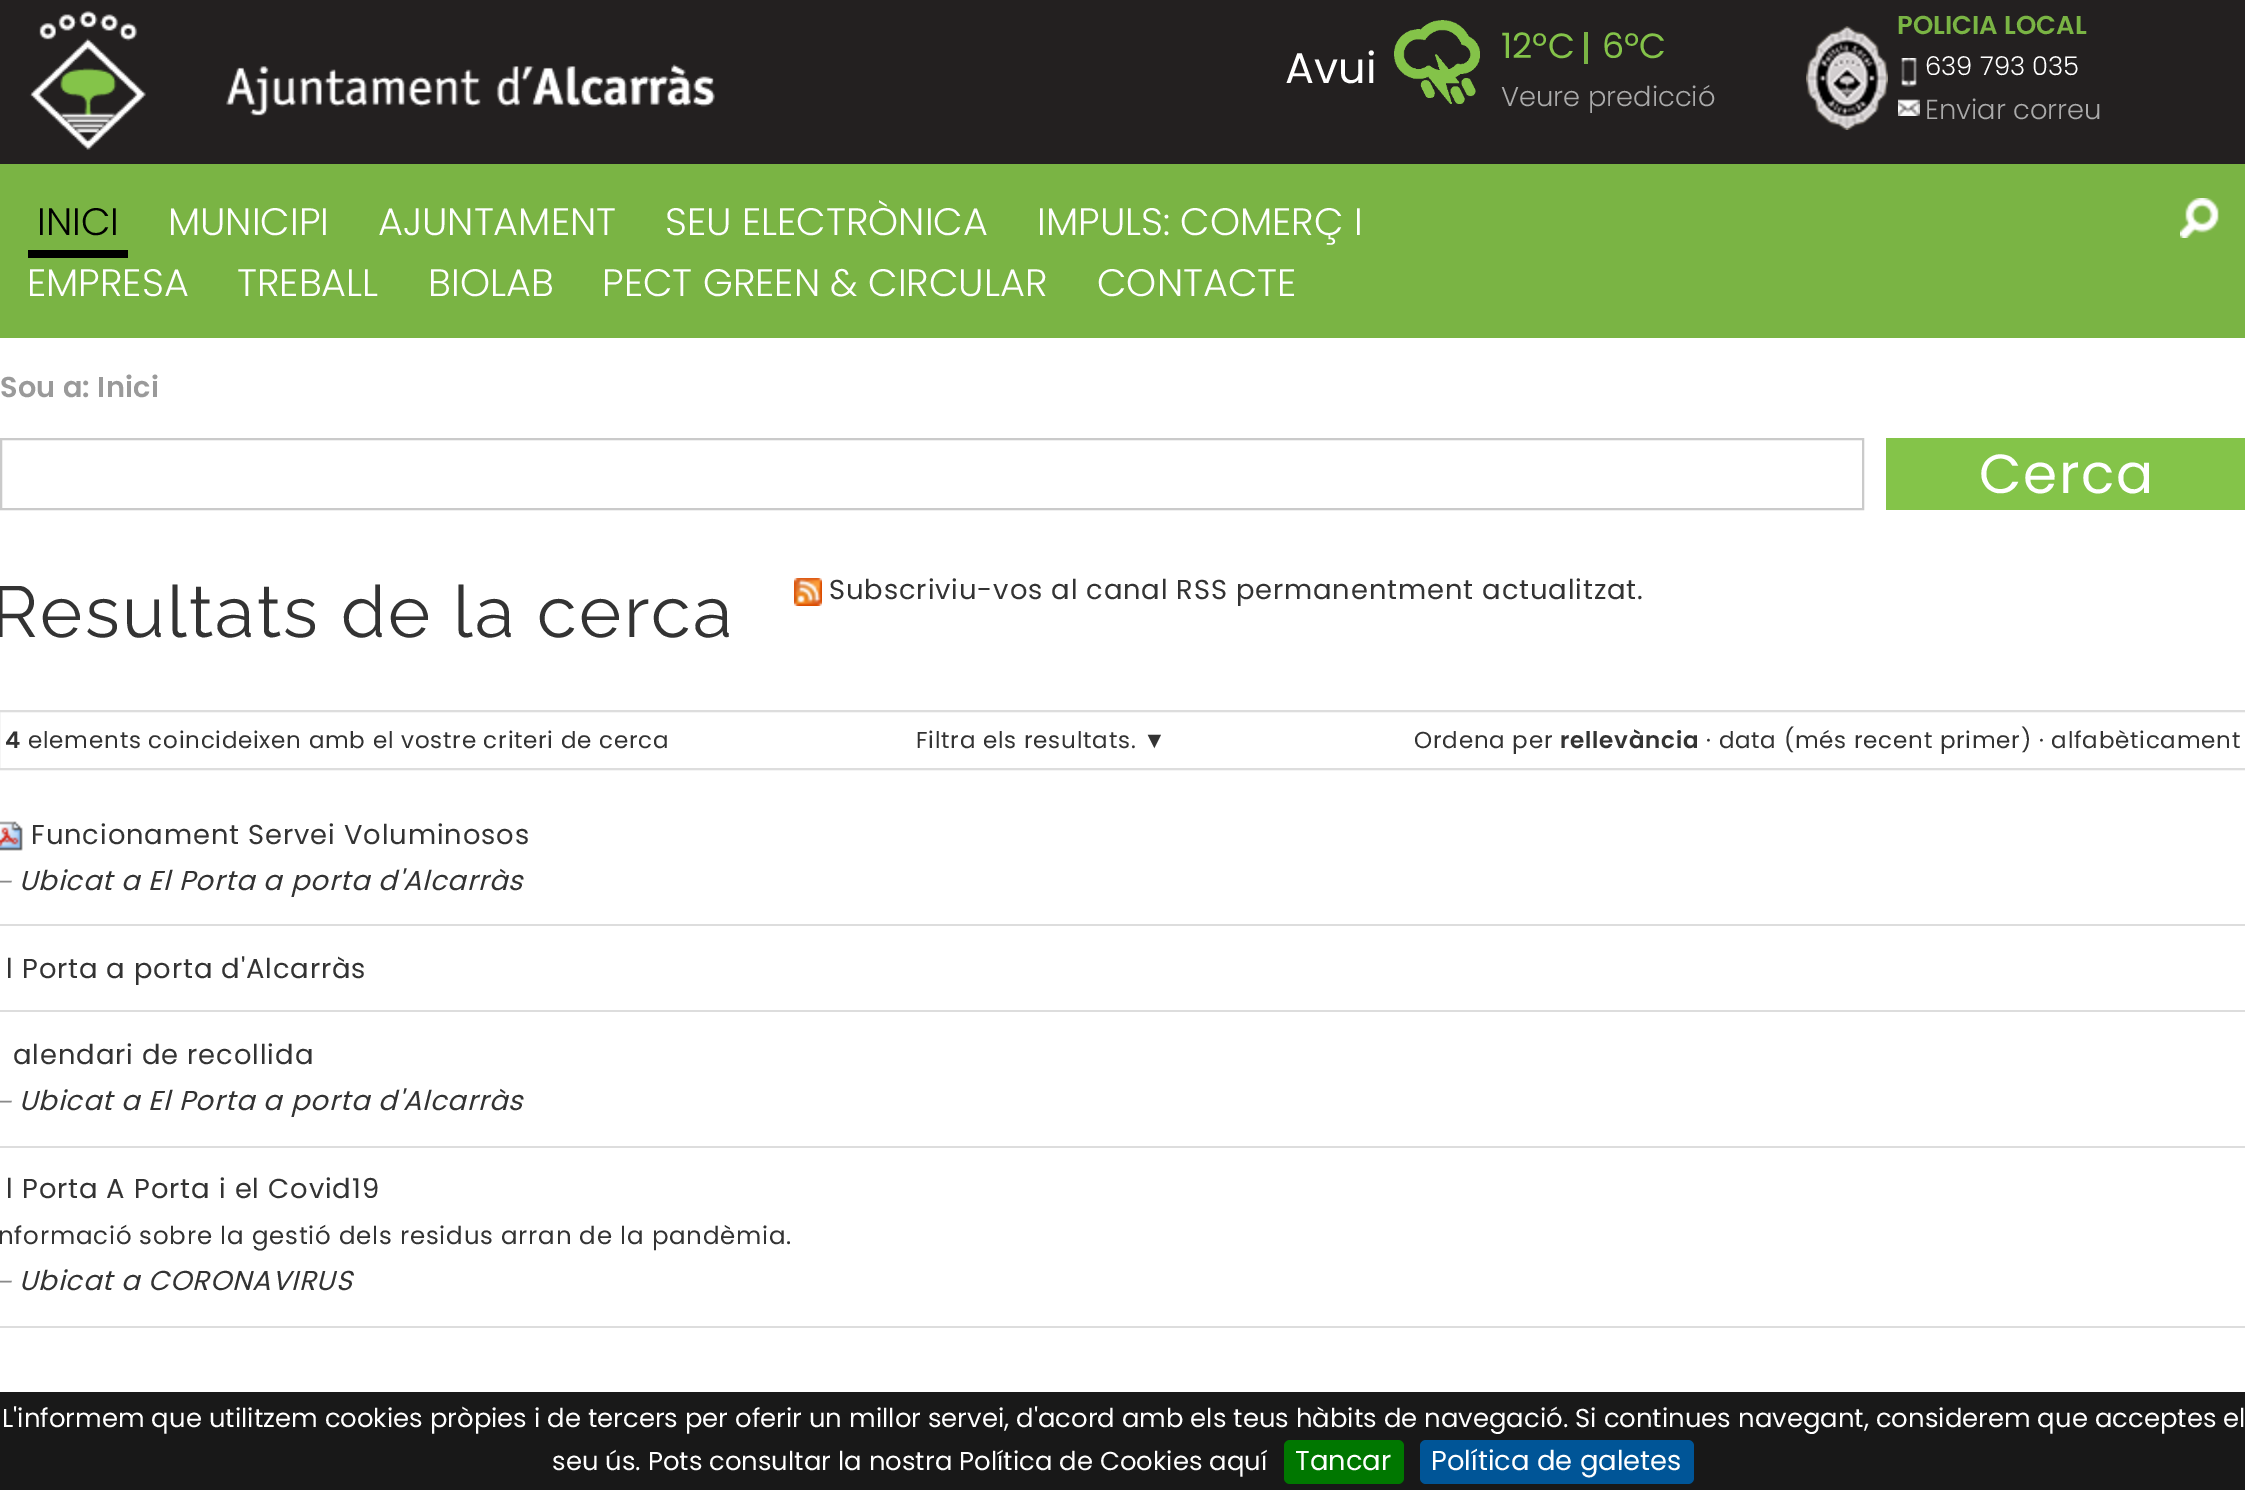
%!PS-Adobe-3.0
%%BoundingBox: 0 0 2245 1490
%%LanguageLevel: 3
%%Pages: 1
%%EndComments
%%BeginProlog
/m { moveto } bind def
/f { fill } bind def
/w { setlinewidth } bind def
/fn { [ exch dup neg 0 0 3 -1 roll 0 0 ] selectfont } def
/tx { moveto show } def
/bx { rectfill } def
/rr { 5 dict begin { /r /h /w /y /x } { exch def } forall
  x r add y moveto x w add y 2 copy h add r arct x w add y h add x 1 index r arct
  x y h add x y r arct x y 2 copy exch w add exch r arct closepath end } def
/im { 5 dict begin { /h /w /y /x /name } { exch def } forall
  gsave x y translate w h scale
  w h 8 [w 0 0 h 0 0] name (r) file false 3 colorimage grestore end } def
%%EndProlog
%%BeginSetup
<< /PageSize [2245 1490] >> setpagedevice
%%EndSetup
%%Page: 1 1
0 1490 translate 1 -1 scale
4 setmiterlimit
1 setgray
0 0 2245 1490 bx
0.098 setgray
0 1392 2245 22 bx
0.137 0.125 0.125 setrgbcolor
0 0 2245 164 bx
(image0.raw) 29 10 686 140 im
/Poppins-Regular 43 fn
1 setgray
(Avui) 1285 83 tx
(image1.raw) 1394 20 86 84 im
/Poppins-Regular 35 fn
0.518 0.765 0.286 setrgbcolor
(12ºC) 1501 58 tx
0.478 0.706 0.267 setrgbcolor
1584 32 4 32 bx
0.518 0.765 0.286 setrgbcolor
(6ºC) 1602 58 tx
/Poppins-Light 27.35 fn
0.667 setgray
(Veure predicció) 1501 106 tx
(image2.raw) 1806 26 82 104 im
/Poppins-SemiBold 25.92 fn
0.478 0.706 0.267 setrgbcolor
(POLICIA LOCAL) 1897 34 tx
(image3.raw) 1901 58 16 29 im
/Poppins-Light 25.92 fn
1 setgray
(639 793 035) 1925 75 tx
(image4.raw) 1898 99 22 17 im
/Poppins-Light 27.35 fn
0.667 setgray
(Enviar correu) 1925 119 tx
0.478 0.706 0.267 setrgbcolor
0 164 2245 174 bx
/Poppins-Light 38.25 fn
0 setgray
(INICI) 37 235 tx
28 250 100 8 bx
1 setgray
(MUNICIPI) 168 235 tx
(AJUNTAMENT) 378 235 tx
(SEU ELECTRÒNICA) 665 235 tx
(IMPULS: COMERÇ I) 1037 235 tx
(EMPRESA) 27 296 tx
(TREBALL) 237 296 tx
(BIOLAB) 428 296 tx
(PECT GREEN & CIRCULAR) 602 296 tx
(CONTACTE) 1097 296 tx
(image5.raw) 2180 198 39 40 im
/Poppins-SemiBold 28.75 fn
0.604 setgray
0 397 m 0.25 0 (Sou a: Inici) ashow
0.792 setgray
2 w
1 439 1862 70 rectstroke
0.518 0.769 0.286 setrgbcolor
1886 438 359 72 bx
/Poppins-Regular 55 fn
1 setgray
1979 493 m 1.75 0 (Cerca) ashow
/Raleway-Regular 72 fn
0.2 setgray
-9 637 m 2.3 0 (Resultats de la cerca) ashow
(image6.raw) 794 578 28 28 im
/Poppins-Regular 27.35 fn
829 599 m -0.25 0 32 0.9 0 (Subscriviu-vos al canal RSS permanentment actualitzat.) awidthshow
0.867 setgray
-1 711 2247 58 rectstroke
/Poppins-SemiBold 23.05 fn
0.2 setgray
5 748 m 0.75 0 (4) ashow
/Poppins-Regular 23.05 fn
28 748 m 0.75 0 (elements coincideixen amb el vostre criteri de cerca) ashow
916 748 m 0.75 0 (Filtra els resultats.) ashow
/LiberationSans-Regular 23.05 fn
1143 748 m 0.75 0 (▼) ashow
/Poppins-Regular 23.05 fn
1414 748 m 0.75 0 (Ordena per) ashow
/Poppins-SemiBold 23.05 fn
1560 748 m 0.75 0 (rellevància) ashow
/Poppins-Regular 23.05 fn
1706 748 m 0.75 0 (· data \(més recent primer\) · alfabèticament) ashow
(image7.raw) 0 821 23 30 im
/Poppins-Regular 27.35 fn
31 844 m 0.9 0 (Funcionament Servei Voluminosos) ashow
0.867 setgray
0 924 2245 2 bx
/Poppins-Italic 23 fn
0.541 setgray
-9 890 m 1 0 (—) ashow
/Poppins-Italic 27.35 fn
0.2 setgray
19 890 m 0.9 0 (Ubicat a) ashow
148 890 m 0.9 0 (El Porta a porta d'Alcarràs) ashow
/Poppins-Regular 27.35 fn
6 978 m 0.9 0 (l Porta a porta d'Alcarràs) ashow
0.867 setgray
0 1010 2245 2 bx
0.2 setgray
13 1064 m 0.9 0 (alendari de recollida) ashow
0.867 setgray
0 1146 2245 2 bx
/Poppins-Italic 23 fn
0.541 setgray
-9 1110 m 1 0 (—) ashow
/Poppins-Italic 27.35 fn
0.2 setgray
19 1110 m 0.9 0 (Ubicat a) ashow
148 1110 m 0.9 0 (El Porta a porta d'Alcarràs) ashow
/Poppins-Regular 27.35 fn
6 1198 m 0.9 0 (l Porta A Porta i el Covid19) ashow
0.867 setgray
0 1326 2245 2 bx
/Poppins-Regular 24.5 fn
0.2 setgray
-2 1244 m 0.8 0 (nformació sobre la gestió dels residus arran de la pandèmia.) ashow
/Poppins-Italic 23 fn
0.541 setgray
-9 1290 m 1 0 (—) ashow
/Poppins-Italic 27.35 fn
0.2 setgray
19 1290 m 0.9 0 (Ubicat a) ashow
148 1290 m 0.9 0 (CORONAVIRUS) ashow
0.094 setgray
0 1414 2245 76 bx
/Poppins-Regular 25.92 fn
1 setgray
(L'informem que utilitzem cookies pròpies i de tercers per oferir un millor servei, d'acord amb els teus hàbits de navegació. Si continues navegant, considerem que acceptes el) 2 1427 tx
(seu ús. Pots consultar la nostra Política de Cookies aquí) 552 1470 tx
0 0.467 0 setrgbcolor
1284 1440 120 44 6 rr f
/Poppins-Regular 27.35 fn
1 setgray
(Tancar) 1295 1470 tx
0 0.333 0.592 setrgbcolor
1420 1440 274 44 6 rr f
1 setgray
(Política de galetes) 1431 1470 tx
showpage
%%EOF
